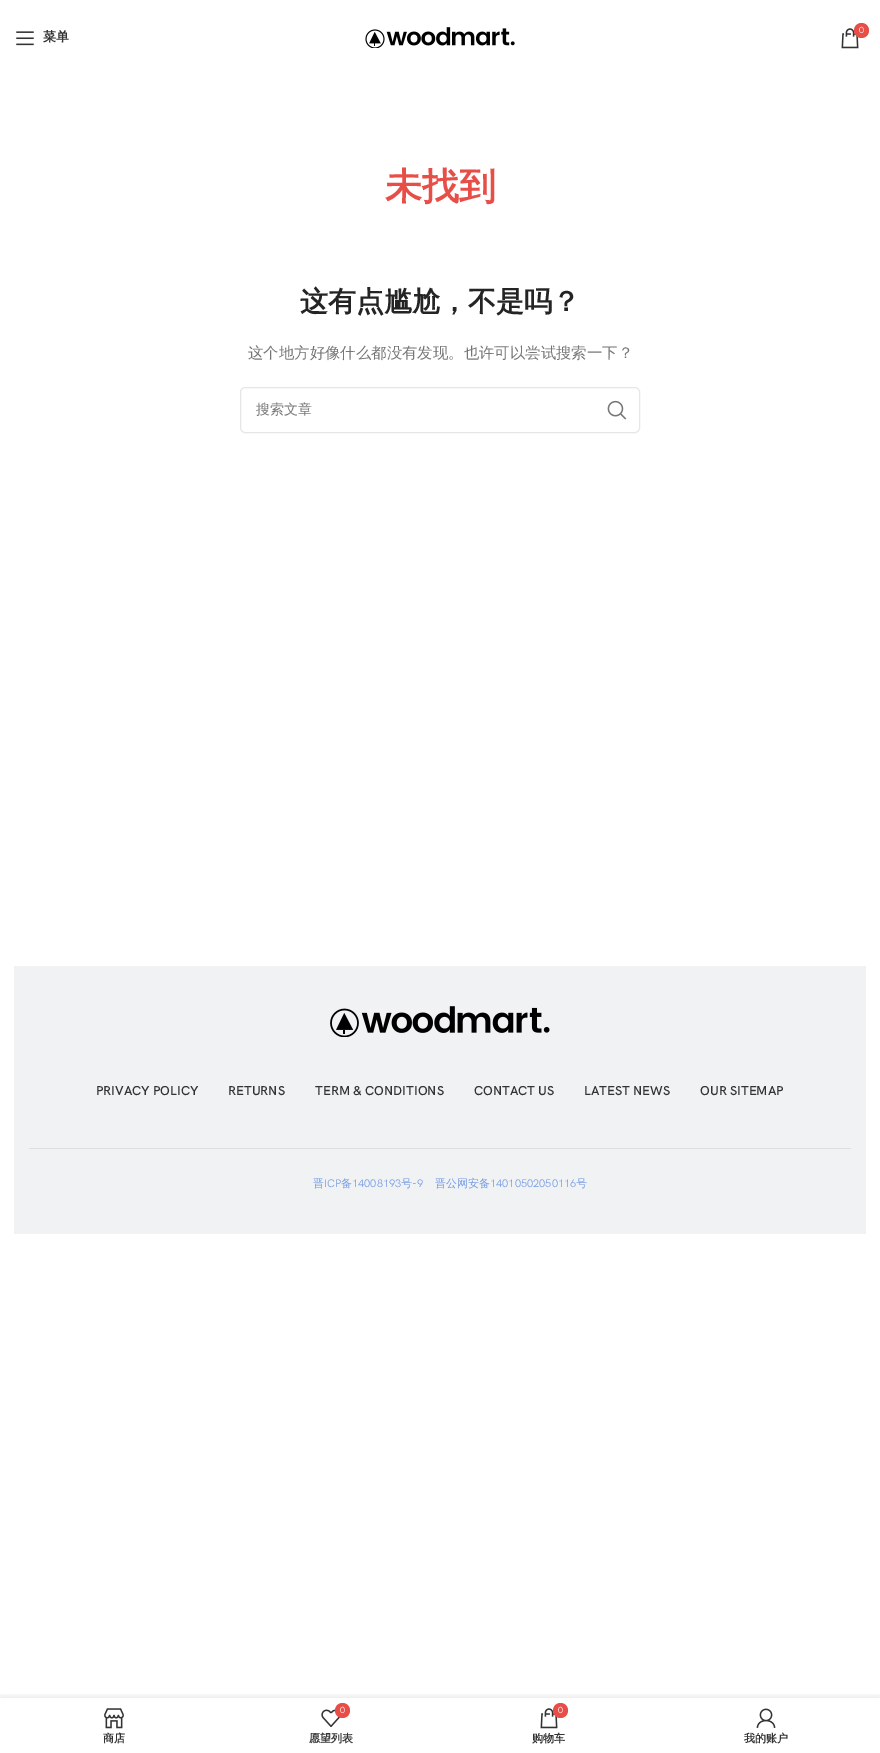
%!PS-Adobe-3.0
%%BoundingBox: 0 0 880 1753
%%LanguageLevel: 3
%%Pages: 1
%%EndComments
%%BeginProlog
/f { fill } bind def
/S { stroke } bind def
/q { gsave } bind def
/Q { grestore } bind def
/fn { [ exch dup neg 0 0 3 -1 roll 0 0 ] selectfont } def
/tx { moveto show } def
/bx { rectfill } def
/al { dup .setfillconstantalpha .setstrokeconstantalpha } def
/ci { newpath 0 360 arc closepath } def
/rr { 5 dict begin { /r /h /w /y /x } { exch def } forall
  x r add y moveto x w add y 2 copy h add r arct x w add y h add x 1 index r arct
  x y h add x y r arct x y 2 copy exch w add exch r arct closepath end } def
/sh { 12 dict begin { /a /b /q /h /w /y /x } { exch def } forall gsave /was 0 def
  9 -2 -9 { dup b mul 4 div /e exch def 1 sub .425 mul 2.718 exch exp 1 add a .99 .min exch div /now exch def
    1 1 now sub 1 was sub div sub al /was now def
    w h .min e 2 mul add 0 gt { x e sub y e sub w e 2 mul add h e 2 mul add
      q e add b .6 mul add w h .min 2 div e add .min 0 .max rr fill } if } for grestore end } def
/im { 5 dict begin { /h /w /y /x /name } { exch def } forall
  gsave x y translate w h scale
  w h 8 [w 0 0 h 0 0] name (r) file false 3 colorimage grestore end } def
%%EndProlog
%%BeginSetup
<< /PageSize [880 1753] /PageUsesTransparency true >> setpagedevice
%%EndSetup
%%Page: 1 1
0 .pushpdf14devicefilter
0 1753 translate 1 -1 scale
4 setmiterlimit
1 setgray
0 0 880 1753 bx
(image0.raw) 16 31 18 15 im
/WenQuanYiZenHei-Bold 13 fn
0.2 setgray
(菜单) 43 41 tx
(image1.raw) 365 27 150 21 im
(image2.raw) 841 28 18 21 im
0.91 0.306 0.282 setrgbcolor
861.5 30.5 7.5 ci f
/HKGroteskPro-Regular 9 fn
1 setgray
(0) 859 33 tx
/WenQuanYiZenHei-Bold 37 fn
0.91 0.306 0.282 setrgbcolor
(未找到) 385 199 tx
/WenQuanYiZenHei-Bold 28 fn
0.141 setgray
(这有点尴尬，不是吗？) 300 311 tx
/WenQuanYiZenHei-Medium 15.4 fn
0.463 setgray
(这个地方好像什么都没有发现。也许可以尝试搜索一下？) 248 358 tx
0.902 setgray
240.5 387.5 399 45 4.5 rr S
/WenQuanYiZenHei-Medium 14 fn
0.463 setgray
(搜索文章) 256 414 tx
(image3.raw) 607 400 20 20 im
0.941 0.949 0.957 setrgbcolor
14 966 852 268 bx
(image4.raw) 330 1006 220 31 im
/HKGroteskPro-SemiBold 13 fn
0.2 setgray
(PRIVACY POLICY) 96 1095 tx
(RETURNS) 228 1095 tx
(TERM & CONDITIONS) 315 1095 tx
(CONTACT US) 474 1095 tx
(LATEST NEWS) 584 1095 tx
(OUR SITEMAP) 700 1095 tx
0.867 0.875 0.878 setrgbcolor
29 1148 822 1 bx
/WenQuanYiZenHei-Medium 11 fn
0.455 0.604 0.89 setrgbcolor
(晋) 313 1187 tx
/HKGroteskPro-Regular 11 fn
(ICP) 324 1187 tx
/WenQuanYiZenHei-Medium 11 fn
(备) 341 1187 tx
/HKGroteskPro-Regular 11 fn
(14008193) 352 1187 tx
/WenQuanYiZenHei-Medium 11 fn
(号) 401 1187 tx
/HKGroteskPro-Regular 11 fn
(-9) 412 1187 tx
/WenQuanYiZenHei-Medium 11 fn
(晋公网安备) 435 1187 tx
/HKGroteskPro-Regular 11 fn
(14010502050116) 490 1187 tx
/WenQuanYiZenHei-Medium 11 fn
(号) 576 1187 tx
q
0 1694 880 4 rectclip
0 setgray
0 1698 880 55 0 4.5 0.12 sh
Q
(image5.raw) 104 1708 20 21 im
/WenQuanYiZenHei-Bold 11 fn
0.2 setgray
(商店) 103 1742 tx
(image6.raw) 321 1709 20 18 im
0.91 0.306 0.282 setrgbcolor
342.5 1710.5 7.5 ci f
/HKGroteskPro-Regular 9 fn
1 setgray
(0) 340 1713 tx
/WenQuanYiZenHei-Bold 11 fn
0.2 setgray
(愿望列表) 309 1742 tx
(image2.raw) 540 1708 18 21 im
0.91 0.306 0.282 setrgbcolor
560.5 1710.5 7.5 ci f
/HKGroteskPro-Regular 9 fn
1 setgray
(0) 558 1713 tx
/WenQuanYiZenHei-Bold 11 fn
0.2 setgray
(购物车) 532 1742 tx
(image7.raw) 756 1708 20 20 im
(我的账户) 744 1742 tx
.poppdf14devicefilter showpage
%%EOF
